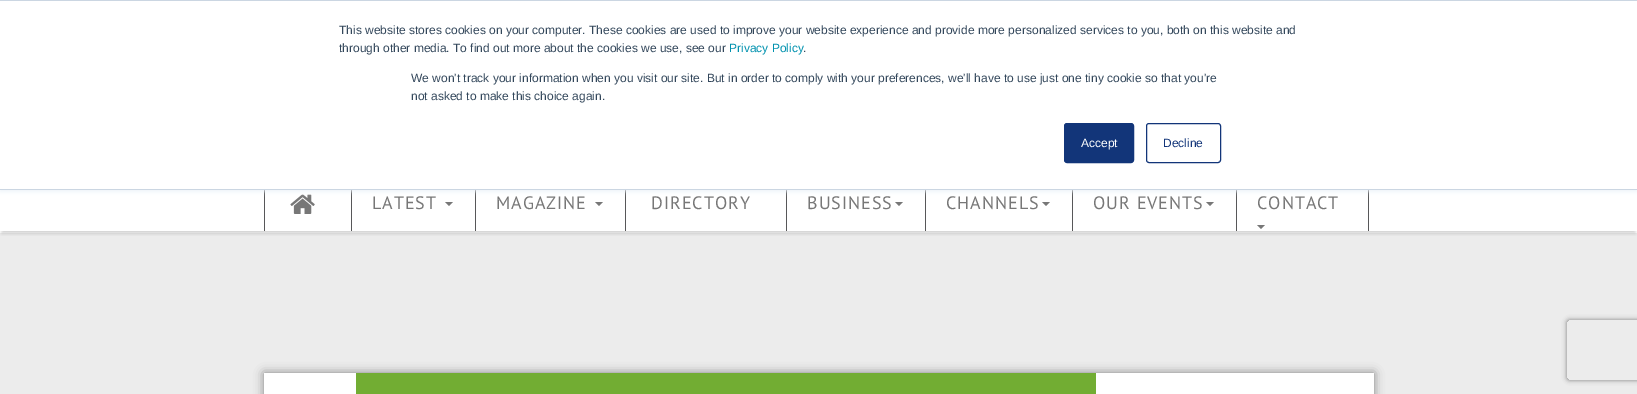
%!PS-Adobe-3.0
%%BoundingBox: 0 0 1637 394
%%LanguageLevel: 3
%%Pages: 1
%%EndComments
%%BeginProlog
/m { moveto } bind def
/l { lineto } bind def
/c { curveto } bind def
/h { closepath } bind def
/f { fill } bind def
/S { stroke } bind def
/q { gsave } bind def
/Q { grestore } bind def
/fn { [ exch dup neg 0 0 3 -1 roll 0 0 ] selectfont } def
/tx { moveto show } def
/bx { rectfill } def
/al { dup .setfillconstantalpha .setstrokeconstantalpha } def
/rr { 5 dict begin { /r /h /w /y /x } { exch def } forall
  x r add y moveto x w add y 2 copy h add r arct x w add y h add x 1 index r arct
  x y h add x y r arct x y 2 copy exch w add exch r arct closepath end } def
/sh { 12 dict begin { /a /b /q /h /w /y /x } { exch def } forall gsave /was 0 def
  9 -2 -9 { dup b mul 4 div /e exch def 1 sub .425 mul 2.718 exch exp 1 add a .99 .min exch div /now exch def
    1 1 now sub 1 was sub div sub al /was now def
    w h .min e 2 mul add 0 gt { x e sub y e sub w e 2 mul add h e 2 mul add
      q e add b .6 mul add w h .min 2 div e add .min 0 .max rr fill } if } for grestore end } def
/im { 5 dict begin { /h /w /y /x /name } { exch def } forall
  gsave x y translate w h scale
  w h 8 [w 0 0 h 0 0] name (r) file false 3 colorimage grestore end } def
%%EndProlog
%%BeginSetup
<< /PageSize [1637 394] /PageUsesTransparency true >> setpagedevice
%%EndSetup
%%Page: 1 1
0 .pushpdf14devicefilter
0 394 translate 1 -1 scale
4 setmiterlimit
1 setgray
0 0 1637 394 bx
0.925 setgray
0 233 1637 161 bx
q
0 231 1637 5 rectclip
0 setgray
2 186 1633 47 0 2 0.2 sh
Q
0.341 0.341 0.349 setrgbcolor
264 190 1 41 bx
(image0.raw) 290 194 25 20 im
351 190 1 41 bx
475 190 1 41 bx
625 190 1 41 bx
786 190 1 41 bx
925 190 1 41 bx
1072 190 1 41 bx
1368 190 1 41 bx
1236 190 1 41 bx
0.918 0.941 0.965 setrgbcolor
0 1 1637 190 0 2.5 1 sh
1 setgray
0 1 1637 188 bx
0.796 0.839 0.886 setrgbcolor
0 0 1637 1 bx
0 189 1637 1 bx
/LiberationSans-Regular 12 fn
0.2 0.278 0.357 setrgbcolor
(This website stores cookies on your computer. These cookies are used to improve your website experience and provide more personalized services to you, both on this website and) 339 34 tx
(through other media. To find out more about the cookies we use, see our) 339 52 tx
0 0.569 0.682 setrgbcolor
(Privacy Policy) 729 52 tx
0.2 0.278 0.357 setrgbcolor
(.) 803 52 tx
(We won't track your information when you visit our site. But in order to comply with your preferences, we'll have to use just one tiny cookie so that you're) 411 82 tx
(not asked to make this choice again.) 411 100 tx
0.071 0.208 0.475 setrgbcolor
1064.5 123.5 69 39 2.5 rr q f Q
S
1 setgray
(Accept) 1081 147 tx
0.071 0.208 0.475 setrgbcolor
1146.5 123.5 74 39 2.5 rr S
(Decline) 1163 147 tx
/PTSans-Regular 18 fn
0.467 setgray
372 209 m 1 0 (LATEST) ashow
445 202 m 453 202 l 449 206 l h f
496 209 m 1 0 (MAGAZINE) ashow
595 202 m 603 202 l 599 206 l h f
651 209 m 1 0 (DIRECTORY) ashow
807 209 m 1 0 (BUSINESS) ashow
895 202 m 903 202 l 899 206 l h f
946 209 m 1 0 (CHANNELS) ashow
1042 202 m 1050 202 l 1046 206 l h f
1093 209 m 1 0 (OUR EVENTS) ashow
1206 202 m 1214 202 l 1210 206 l h f
1257 209 m 1 0 (CONTACT) ashow
1257 225 m 1265 225 l 1261 229 l h f
0.502 setgray
264 373 1110 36 0 5 1 sh
1 setgray
264 373 1110 21 bx
0.447 0.678 0.2 setrgbcolor
356 373 740 21 bx
q
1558 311 m 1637 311 l 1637 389 l 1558 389 l h 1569 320 m 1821 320 l 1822 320 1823 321 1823 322 c 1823 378 l 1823 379 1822 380 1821 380 c 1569 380 l 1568 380 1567 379 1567 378 c 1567 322 l 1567 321 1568 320 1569 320 c h eoclip newpath
0.502 setgray
1567 320 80 60 2 2.5 1 sh
Q
.poppdf14devicefilter showpage
%%EOF
